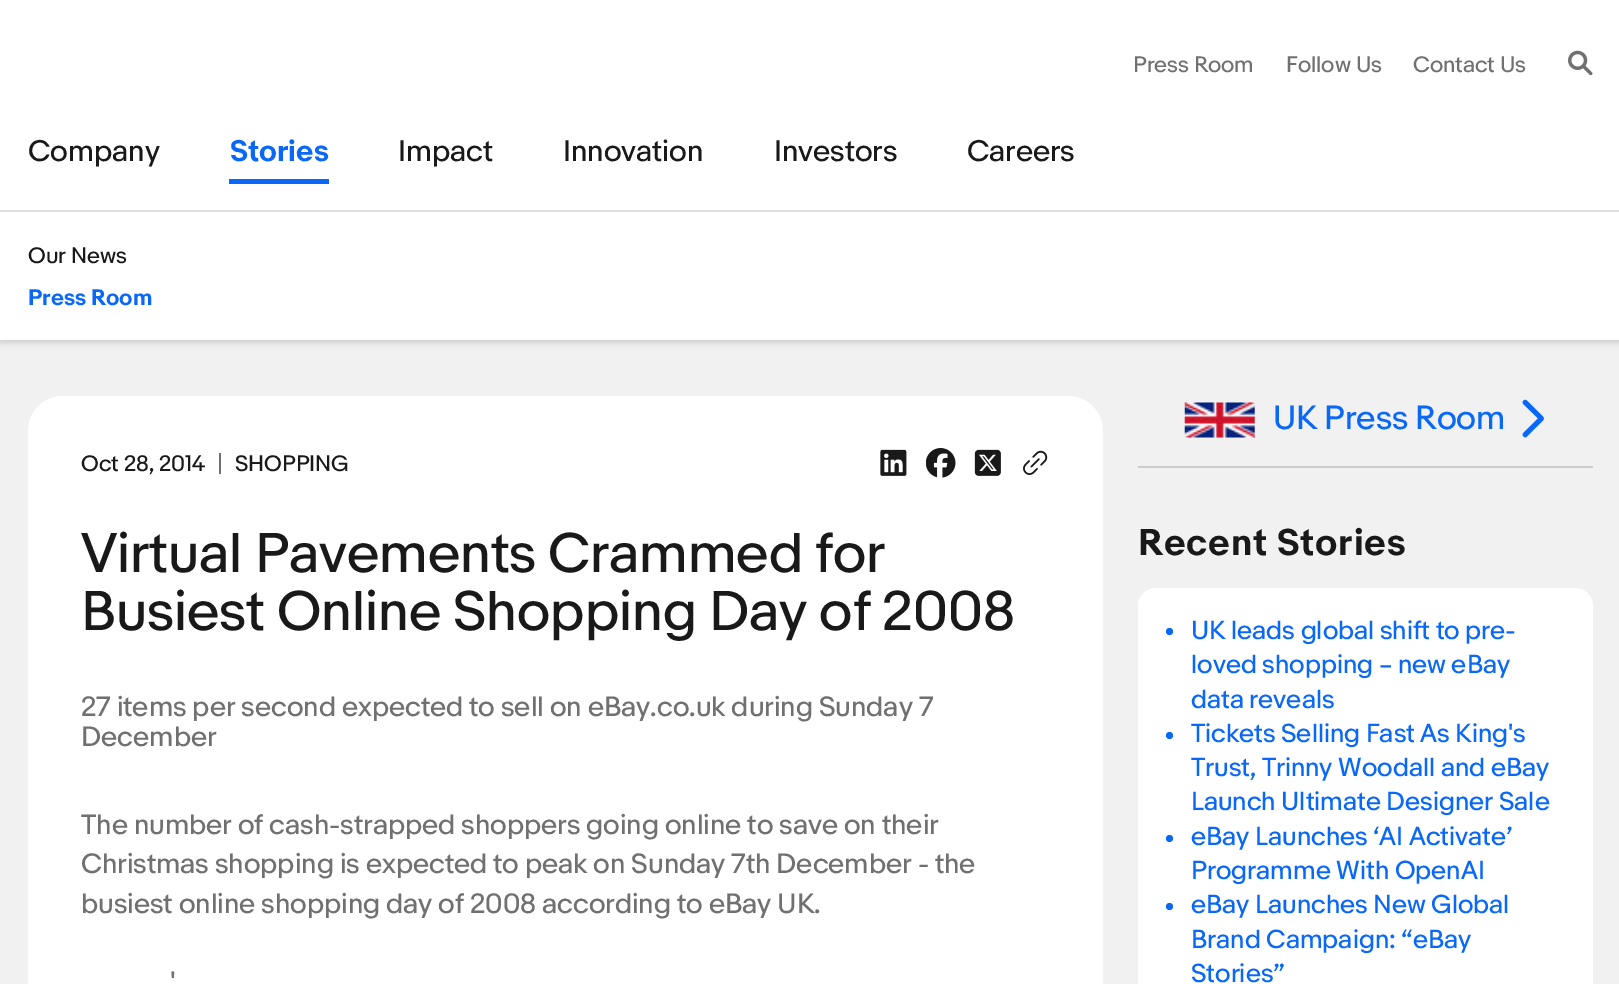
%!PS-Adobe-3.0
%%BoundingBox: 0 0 1619 984
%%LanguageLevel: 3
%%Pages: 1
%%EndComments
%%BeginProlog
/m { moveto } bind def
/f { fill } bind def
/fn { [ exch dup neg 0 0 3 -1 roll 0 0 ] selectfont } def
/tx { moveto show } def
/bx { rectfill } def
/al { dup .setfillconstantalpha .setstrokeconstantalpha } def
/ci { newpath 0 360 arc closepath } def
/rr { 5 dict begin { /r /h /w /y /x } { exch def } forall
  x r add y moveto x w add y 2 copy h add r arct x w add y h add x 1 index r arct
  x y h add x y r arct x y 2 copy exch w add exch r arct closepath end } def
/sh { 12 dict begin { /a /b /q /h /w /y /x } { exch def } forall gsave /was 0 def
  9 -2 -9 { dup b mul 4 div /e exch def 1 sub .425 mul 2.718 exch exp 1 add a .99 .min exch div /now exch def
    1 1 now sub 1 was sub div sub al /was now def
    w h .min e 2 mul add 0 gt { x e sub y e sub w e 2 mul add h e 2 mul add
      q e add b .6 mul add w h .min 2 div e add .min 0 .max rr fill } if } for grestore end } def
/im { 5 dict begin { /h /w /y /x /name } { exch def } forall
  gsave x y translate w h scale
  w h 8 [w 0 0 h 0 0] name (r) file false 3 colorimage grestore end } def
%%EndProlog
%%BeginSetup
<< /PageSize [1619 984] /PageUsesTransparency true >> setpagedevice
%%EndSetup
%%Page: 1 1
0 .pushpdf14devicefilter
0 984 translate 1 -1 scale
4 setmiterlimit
0.945 setgray
0 0 1619 984 bx
0 setgray
0 212 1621 128 0 4.5 0.25 sh
1 setgray
0 0 1619 210 bx
/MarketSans-Regular 21 fn
0.439 setgray
(Press Room) 1133 72 tx
(Follow Us) 1286 72 tx
(Contact Us) 1413 72 tx
(image0.raw) 1568 50 25 26 im
/MarketSans-Regular 28 fn
0.098 setgray
(Company) 28 161 tx
/MarketSans-Bold 28 fn
0.035 0.408 0.965 setrgbcolor
(Stories) 230 161 tx
229 179 100 5 bx
/MarketSans-Regular 28 fn
0.098 setgray
(Impact) 398 161 tx
(Innovation) 563 161 tx
(Investors) 774 161 tx
(Careers) 967 161 tx
0.867 setgray
0 210 1619 2 bx
1 setgray
0 212 1619 128 bx
/MarketSans-Regular 21 fn
0.098 setgray
(Our News) 28 263 tx
/MarketSans-Bold 21 fn
0.035 0.408 0.965 setrgbcolor
(Press Room) 28 305 tx
1 setgray
28 396 1075 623 35 rr f
/MarketSans-Regular 21 fn
0.098 setgray
(Oct 28, 2014) 81 471 tx
0.439 setgray
219 453 2 21 bx
0.098 setgray
(SHOPPING) 235 471 tx
(image1.raw) 880 449 27 27 im
(image2.raw) 926 448 30 30 im
(image3.raw) 974 449 27 27 im
(image4.raw) 1023 450 25 25 im
/MarketSans-Regular 52.5 fn
(Virtual Pavements Crammed for) 81 572 tx
(Busiest Online Shopping Day of 2008) 81 630 tx
/MarketSans-Regular 26.25 fn
0.439 setgray
(27 items per second expected to sell on eBay.co.uk during Sunday 7) 81 716 tx
(December) 81 746 tx
(The number of cash-strapped shoppers going online to save on their) 81 834 tx
(Christmas shopping is expected to peak on Sunday 7th December - the) 81 873 tx
(busiest online shopping day of 2008 according to eBay UK.) 81 913 tx
(') 170 991 tx
0.8 setgray
1138 466 455 2 bx
(image5.raw) 1184 402 71 36 im
/MarketSans-Regular 31.5 fn
0.035 0.408 0.965 setrgbcolor
(UK Press Room) 1273 429 tx
(image6.raw) 1522 399 22 39 im
/MarketSans-Bold 35 fn
0.098 setgray
1138 555 m 0.9 0 (Recent Stories) ashow
1 setgray
1138 588 455 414 18 rr f
0.035 0.408 0.965 setrgbcolor
1169.5 631.5 3.5 ci f
/MarketSans-Regular 24.5 fn
(UK leads global shift to pre-) 1191 639 tx
(loved shopping – new eBay) 1191 673 tx
(data reveals) 1191 708 tx
1169.5 735.5 3.5 ci f
(Tickets Selling Fast As King's) 1191 742 tx
(Trust, Trinny Woodall and eBay) 1191 776 tx
(Launch Ultimate Designer Sale) 1191 810 tx
1169.5 838.5 3.5 ci f
(eBay Launches ‘AI Activate’) 1191 845 tx
(Programme With OpenAI) 1191 879 tx
1169.5 906.5 3.5 ci f
(eBay Launches New Global) 1191 913 tx
(Brand Campaign: “eBay) 1191 948 tx
(Stories”) 1191 982 tx
.poppdf14devicefilter showpage
%%EOF
